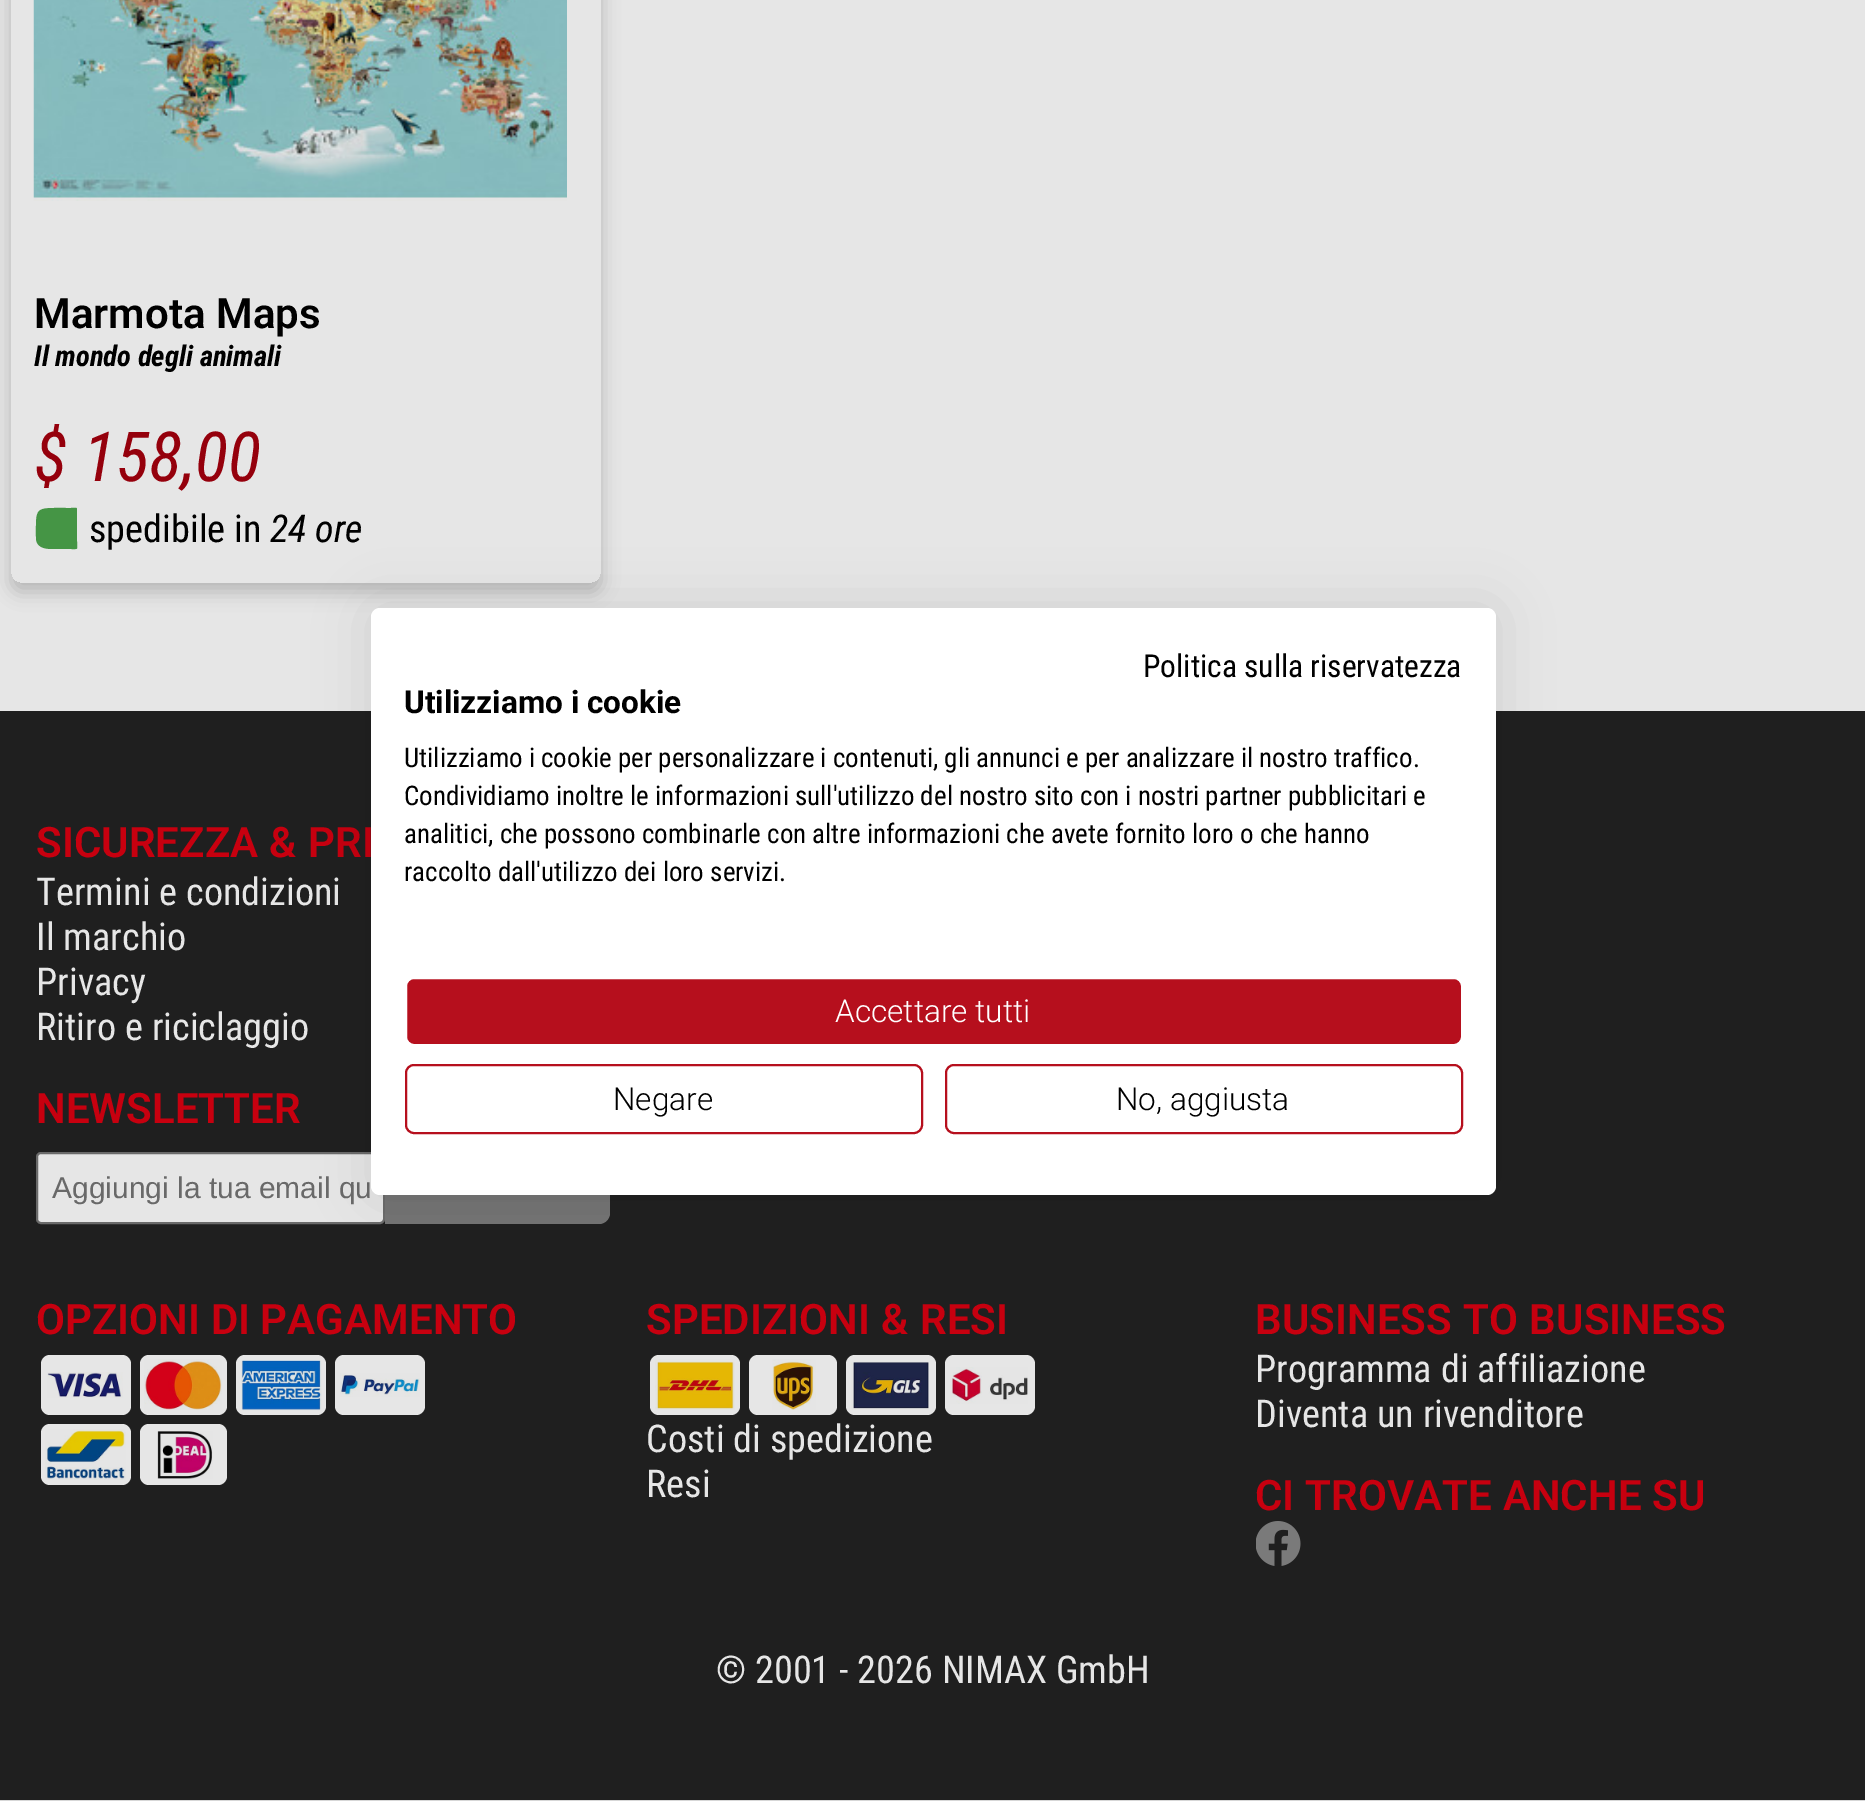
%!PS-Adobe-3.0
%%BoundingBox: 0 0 1865 1801
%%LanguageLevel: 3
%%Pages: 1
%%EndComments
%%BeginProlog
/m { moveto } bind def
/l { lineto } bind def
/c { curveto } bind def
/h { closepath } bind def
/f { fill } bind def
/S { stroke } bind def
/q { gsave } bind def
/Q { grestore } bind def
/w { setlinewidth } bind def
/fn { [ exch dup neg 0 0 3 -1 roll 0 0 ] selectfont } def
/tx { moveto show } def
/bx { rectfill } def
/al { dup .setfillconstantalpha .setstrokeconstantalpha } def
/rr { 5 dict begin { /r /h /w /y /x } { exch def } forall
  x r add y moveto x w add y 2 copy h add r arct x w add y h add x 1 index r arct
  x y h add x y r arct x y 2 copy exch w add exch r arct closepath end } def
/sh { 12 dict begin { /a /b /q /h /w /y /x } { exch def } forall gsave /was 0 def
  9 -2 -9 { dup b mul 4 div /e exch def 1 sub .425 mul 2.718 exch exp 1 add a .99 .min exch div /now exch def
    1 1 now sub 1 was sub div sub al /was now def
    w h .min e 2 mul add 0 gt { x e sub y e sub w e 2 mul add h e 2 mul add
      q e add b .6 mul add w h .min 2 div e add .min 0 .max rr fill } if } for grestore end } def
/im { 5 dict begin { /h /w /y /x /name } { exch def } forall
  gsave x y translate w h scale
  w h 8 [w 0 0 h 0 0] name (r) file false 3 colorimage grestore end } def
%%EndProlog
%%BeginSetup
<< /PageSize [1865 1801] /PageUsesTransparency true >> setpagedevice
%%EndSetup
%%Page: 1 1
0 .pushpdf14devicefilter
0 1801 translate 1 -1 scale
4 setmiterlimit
0.902 setgray
0 0 1865 1801 bx
q
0 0 m 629 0 l 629 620 l 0 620 l h 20 -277 m 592 -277 l 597 -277 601 -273 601 -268 c 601 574 l 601 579 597 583 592 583 c 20 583 l 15 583 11 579 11 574 c 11 -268 l 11 -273 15 -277 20 -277 c h eoclip newpath
0 setgray
11 -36 590 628 9 9 0.2 sh
Q
(image0.raw) 33 0 534 201 im
/Roboto-SemiBold 42 fn
0 setgray
(Marmota Maps) 34 328 tx
/RobotoCondensed-BoldItalic 28.75 fn
(Il mondo degli animali) 34 366 tx
/RobotoCondensed-Italic 69 fn
0.584 0 0.047 setrgbcolor
($ 158,00) 34 481 tx
0.271 0.584 0.271 setrgbcolor
77 509 m 77 541 l 77 550 79 549 71 549 c 52 549 l 44 549 36 547 36 538 c 36 506 34 508 67 508 c 71 508 l 73 508 77 507 77 509 c h f
/RobotoCondensed-Regular 38.25 fn
0 setgray
(spedibile in) 89 542 tx
/RobotoCondensed-Italic 38.25 fn
(24 ore) 270 542 tx
0.122 setgray
0 711 1865 1089 bx
0.843 setgray
0 1800 1865 1 bx
/Roboto-SemiBold 42 fn
0.78 0 0.059 setrgbcolor
36 857 m 1 0 32 (SICUREZZA & PRI) widthshow
/RobotoCondensed-Regular 38.25 fn
0.902 setgray
(Termini e condizioni) 36 905 tx
(Il marchio) 36 950 tx
(Privacy) 36 995 tx
(Ritiro e riciclaggio) 36 1040 tx
/Roboto-SemiBold 42 fn
0.78 0 0.059 setrgbcolor
(NEWSLETTER) 36 1123 tx
0.902 setgray
37 1153 347 70 4 rr q f Q
0.416 setgray
2 w
S
/LiberationSans-Regular 30 fn
0.412 setgray
(Aggiungi la tua email qu) 52 1198 tx
0.451 setgray
385 1152 m 599 1152 l 605 1152 610 1157 610 1163 c 610 1213 l 610 1219 605 1224 599 1224 c 385 1224 l h f
/Roboto-SemiBold 42 fn
0.78 0 0.059 setrgbcolor
(OPZIONI DI PAGAMENTO) 36 1334 tx
0.902 setgray
41 1355 90 60 9 rr f
(image1.raw) 47 1372 76 26 im
140 1355 87 60 9 rr f
(image2.raw) 144 1359 78 51 im
236 1355 90 60 9 rr f
(image3.raw) 241 1360 81 51 im
335 1355 90 60 9 rr f
(image4.raw) 340 1373 80 24 im
41 1424 90 61 9 rr f
(image5.raw) 45 1429 81 51 im
140 1424 87 61 9 rr f
(image6.raw) 157 1431 56 48 im
0.78 0 0.059 setrgbcolor
646 1334 m 1 0 32 (SPEDIZIONI & RESI) widthshow
0.902 setgray
650 1355 90 60 9 rr f
(image7.raw) 655 1359 80 51 im
749 1355 88 60 9 rr f
(image8.raw) 772 1359 44 51 im
846 1355 90 60 9 rr f
(image9.raw) 851 1362 78 48 im
945 1355 90 60 9 rr f
(image10.raw) 950 1367 78 37 im
/RobotoCondensed-Regular 38.25 fn
(Costi di spedizione) 646 1452 tx
(Resi) 646 1497 tx
/Roboto-SemiBold 42 fn
0.78 0 0.059 setrgbcolor
1255 1334 m 1 0 32 (BUSINESS TO BUSINESS) widthshow
/RobotoCondensed-Regular 38.25 fn
0.902 setgray
(Programma di affiliazione) 1255 1382 tx
(Diventa un rivenditore) 1255 1427 tx
/Roboto-SemiBold 42 fn
0.78 0 0.059 setrgbcolor
1255 1510 m 0.5 0 32 (CI TROVATE ANCHE SU) widthshow
(image11.raw) 1256 1521 45 45 im
/RobotoCondensed-Regular 38.25 fn
0.902 setgray
(© 2001 - 2026 NIMAX GmbH) 716 1683 tx
0 setgray
371 608 1125 587 9 27 0.1 sh
1 setgray
371 608 1125 587 9 rr f
/RobotoCondensed-Regular 31.5 fn
0 setgray
(Politica sulla riservatezza) 1143 677 tx
/Roboto-Bold 31.5 fn
(Utilizziamo i cookie) 404 713 tx
/RobotoCondensed-Regular 27 fn
(Utilizziamo i cookie per personalizzare i contenuti, gli annunci e per analizzare il nostro traffico.) 404 767 tx
(Condividiamo inoltre le informazioni sull'utilizzo del nostro sito con i nostri partner pubblicitari e) 404 805 tx
(analitici, che possono combinarle con altre informazioni che avete fornito loro o che hanno) 404 843 tx
(raccolto dall'utilizzo dei loro servizi.) 404 881 tx
0.714 0.059 0.114 setrgbcolor
406 978 1056 67 8 rr q f Q
1 setgray
S
/Roboto-Light 31.5 fn
(Accettare tutti) 835 1022 tx
0.714 0.059 0.114 setrgbcolor
406 1065 516 68 8 rr S
0 setgray
(Negare) 613 1110 tx
0.714 0.059 0.114 setrgbcolor
946 1065 516 68 8 rr S
0 setgray
(No, aggiusta) 1116 1110 tx
.poppdf14devicefilter showpage
%%EOF
